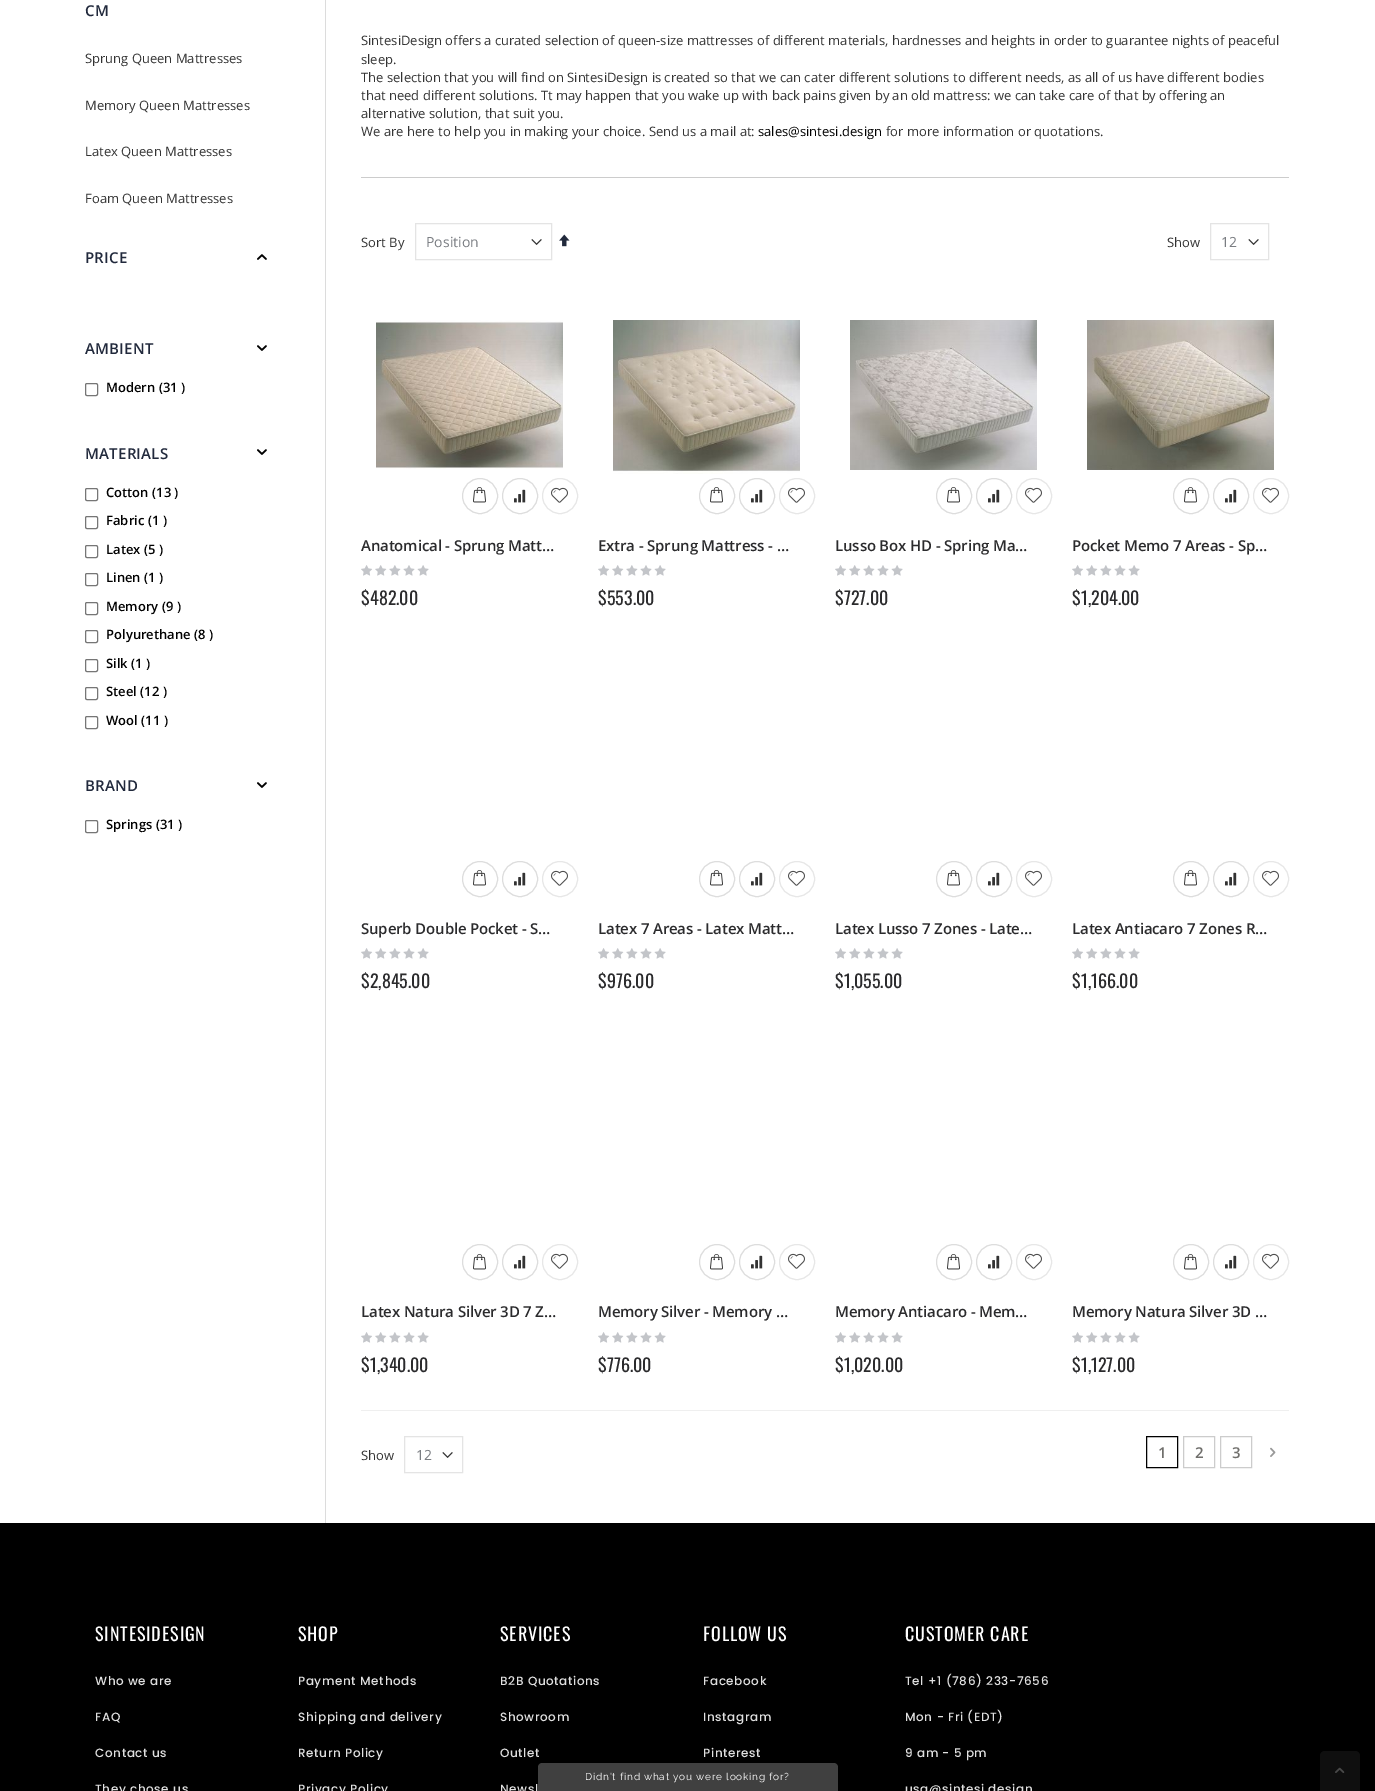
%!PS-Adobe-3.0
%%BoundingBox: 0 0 1375 1791
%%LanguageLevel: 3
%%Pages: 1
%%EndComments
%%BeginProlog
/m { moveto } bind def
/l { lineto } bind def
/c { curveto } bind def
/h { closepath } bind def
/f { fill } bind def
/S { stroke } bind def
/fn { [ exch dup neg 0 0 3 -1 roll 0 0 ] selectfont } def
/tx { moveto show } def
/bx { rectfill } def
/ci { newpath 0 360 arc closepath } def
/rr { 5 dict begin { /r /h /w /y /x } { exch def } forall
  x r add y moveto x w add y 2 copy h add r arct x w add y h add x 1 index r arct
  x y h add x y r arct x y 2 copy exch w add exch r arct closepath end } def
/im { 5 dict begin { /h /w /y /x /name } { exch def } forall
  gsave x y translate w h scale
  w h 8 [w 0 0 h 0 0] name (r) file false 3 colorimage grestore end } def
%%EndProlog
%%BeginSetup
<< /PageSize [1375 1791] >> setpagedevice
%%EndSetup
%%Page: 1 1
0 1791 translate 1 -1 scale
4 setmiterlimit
1 setgray
0 0 1375 1791 bx
/OpenSans-SemiBold 15 fn
0.129 0.161 0.235 setrgbcolor
85 16 m 0.25 0 (CM) ashow
/OpenSans-Regular 13 fn
0.2 setgray
(Sprung Queen Mattresses) 85 63 tx
(Memory Queen Mattresses) 85 110 tx
(Latex Queen Mattresses) 85 156 tx
(Foam Queen Mattresses) 85 203 tx
/OpenSans-SemiBold 15 fn
0.129 0.161 0.235 setrgbcolor
85 263 m 0.25 0 (PRICE) ashow
(image0.raw) 257 254 10 6 im
85 354 m 0.25 0 (AMBIENT) ashow
(image1.raw) 257 345 10 6 im
0.463 setgray
85.5 383.5 12 12 1.5 rr S
/OpenSans-SemiBold 13 fn
0 setgray
(Modern \(31 \)) 106 392 tx
/OpenSans-SemiBold 15 fn
0.129 0.161 0.235 setrgbcolor
85 459 m 0.25 0 (MATERIALS) ashow
(image1.raw) 257 449 10 6 im
0.463 setgray
85.5 488.5 12 12 1.5 rr S
/OpenSans-SemiBold 13 fn
0 setgray
(Cotton \(13 \)) 106 497 tx
0.463 setgray
85.5 516.5 12 12 1.5 rr S
0 setgray
(Fabric \(1 \)) 106 525 tx
0.463 setgray
85.5 545.5 12 12 1.5 rr S
0 setgray
(Latex \(5 \)) 106 554 tx
0.463 setgray
85.5 573.5 12 12 1.5 rr S
0 setgray
(Linen \(1 \)) 106 582 tx
0.463 setgray
85.5 602.5 12 12 1.5 rr S
0 setgray
(Memory \(9 \)) 106 611 tx
0.463 setgray
85.5 630.5 12 12 1.5 rr S
0 setgray
(Polyurethane \(8 \)) 106 639 tx
0.463 setgray
85.5 659.5 12 12 1.5 rr S
0 setgray
(Silk \(1 \)) 106 668 tx
0.463 setgray
85.5 687.5 12 12 1.5 rr S
0 setgray
(Steel \(12 \)) 106 696 tx
0.463 setgray
85.5 716.5 12 12 1.5 rr S
0 setgray
(Wool \(11 \)) 106 725 tx
/OpenSans-SemiBold 15 fn
0.129 0.161 0.235 setrgbcolor
85 791 m 0.25 0 (BRAND) ashow
(image1.raw) 257 782 10 6 im
0.463 setgray
85.5 820.5 12 12 1.5 rr S
/OpenSans-SemiBold 13 fn
0 setgray
(Springs \(31 \)) 106 829 tx
0.863 setgray
325 0 1 1523 bx
/OpenSans-Regular 13 fn
0.2 setgray
(SintesiDesign offers a curated selection of queen-size mattresses of different materials, hardnesses and heights in order to guarantee nights of peaceful) 361 45 tx
(sleep.) 361 64 tx
(The selection that you will find on SintesiDesign is created so that we can cater different solutions to different needs, as all of us have different bodies) 361 82 tx
(that need different solutions. Tt may happen that you wake up with back pains given by an old mattress: we can take care of that by offering an) 361 100 tx
(alternative solution, that suit you.) 361 118 tx
(We are here to help you in making your choice. Send us a mail at:) 361 136 tx
0 setgray
(sales@sintesi.design) 758 136 tx
0.2 setgray
(for more information or quotations.) 886 136 tx
0.8 setgray
361 177 928 1 bx
0.2 setgray
(Sort By) 361 247 tx
(image2.raw) 531 239 11 6 im
0.894 setgray
415.5 223.5 136 36 rectstroke
/OpenSans-Regular 14 fn
0.478 0.49 0.51 setrgbcolor
(Position) 426 247 tx
(image3.raw) 559 234 11 13 im
/OpenSans-Regular 13 fn
0.2 setgray
(Show) 1167 247 tx
(image2.raw) 1248 239 11 6 im
0.894 setgray
1210.5 223.5 58 36 rectstroke
/OpenSans-Regular 14 fn
0.478 0.49 0.51 setrgbcolor
(12) 1221 247 tx
(image4.raw) 376 320 187 149 im
0.867 setgray
480 496 17.5 ci S
(image5.raw) 473 487 13 16 im
520 496 17.5 ci S
(image6.raw) 514 489 12 14 im
0.906 setgray
560 496 17.5 ci S
(image7.raw) 551 487 17 16 im
/OpenSans-SemiBold 15 fn
0.169 0.169 0.176 setrgbcolor
361 551 m -0.15 0 (Anatomical - Sprung Matt…) ashow
(image8.raw) 361 565 68 11 im
/Oswald-Regular 18 fn
($482.00) 361 605 tx
(image9.raw) 613 320 187 154 im
0.867 setgray
717 496 17.5 ci S
(image5.raw) 710 487 13 16 im
757 496 17.5 ci S
(image6.raw) 751 489 12 14 im
0.906 setgray
797 496 17.5 ci S
(image7.raw) 788 487 17 16 im
/OpenSans-SemiBold 15 fn
0.169 0.169 0.176 setrgbcolor
598 551 m -0.15 0 (Extra - Sprung Mattress - …) ashow
(image8.raw) 598 565 68 11 im
/Oswald-Regular 18 fn
($553.00) 598 605 tx
(image10.raw) 850 320 187 150 im
0.867 setgray
954 496 17.5 ci S
(image5.raw) 947 487 13 16 im
994 496 17.5 ci S
(image6.raw) 988 489 12 14 im
0.906 setgray
1034 496 17.5 ci S
(image7.raw) 1025 487 17 16 im
/OpenSans-SemiBold 15 fn
0.169 0.169 0.176 setrgbcolor
835 551 m -0.15 0 (Lusso Box HD - Spring Ma…) ashow
(image8.raw) 835 565 68 11 im
/Oswald-Regular 18 fn
($727.00) 835 605 tx
(image11.raw) 1087 320 187 150 im
0.867 setgray
1191 496 17.5 ci S
(image5.raw) 1184 487 13 16 im
1231 496 17.5 ci S
(image6.raw) 1225 489 12 14 im
0.906 setgray
1271 496 17.5 ci S
(image7.raw) 1262 487 17 16 im
/OpenSans-SemiBold 15 fn
0.169 0.169 0.176 setrgbcolor
1072 551 m -0.15 0 (Pocket Memo 7 Areas - Sp…) ashow
(image8.raw) 1072 565 68 11 im
/Oswald-Regular 18 fn
($1,204.00) 1072 605 tx
0.867 setgray
480 879 17.5 ci S
(image5.raw) 473 870 13 16 im
520 879 17.5 ci S
(image6.raw) 514 872 12 14 im
0.906 setgray
560 879 17.5 ci S
(image7.raw) 551 870 17 16 im
/OpenSans-SemiBold 15 fn
0.169 0.169 0.176 setrgbcolor
361 934 m -0.15 0 (Superb Double Pocket - S…) ashow
(image8.raw) 361 948 68 11 im
/Oswald-Regular 18 fn
($2,845.00) 361 988 tx
0.867 setgray
717 879 17.5 ci S
(image5.raw) 710 870 13 16 im
757 879 17.5 ci S
(image6.raw) 751 872 12 14 im
0.906 setgray
797 879 17.5 ci S
(image7.raw) 788 870 17 16 im
/OpenSans-SemiBold 15 fn
0.169 0.169 0.176 setrgbcolor
598 934 m -0.15 0 (Latex 7 Areas - Latex Matt…) ashow
(image8.raw) 598 948 68 11 im
/Oswald-Regular 18 fn
($976.00) 598 988 tx
0.867 setgray
954 879 17.5 ci S
(image5.raw) 947 870 13 16 im
994 879 17.5 ci S
(image6.raw) 988 872 12 14 im
0.906 setgray
1034 879 17.5 ci S
(image7.raw) 1025 870 17 16 im
/OpenSans-SemiBold 15 fn
0.169 0.169 0.176 setrgbcolor
835 934 m -0.15 0 (Latex Lusso 7 Zones - Late…) ashow
(image8.raw) 835 948 68 11 im
/Oswald-Regular 18 fn
($1,055.00) 835 988 tx
0.867 setgray
1191 879 17.5 ci S
(image5.raw) 1184 870 13 16 im
1231 879 17.5 ci S
(image6.raw) 1225 872 12 14 im
0.906 setgray
1271 879 17.5 ci S
(image7.raw) 1262 870 17 16 im
/OpenSans-SemiBold 15 fn
0.169 0.169 0.176 setrgbcolor
1072 934 m -0.15 0 (Latex Antiacaro 7 Zones R…) ashow
(image8.raw) 1072 948 68 11 im
/Oswald-Regular 18 fn
($1,166.00) 1072 988 tx
0.867 setgray
480 1262 17.5 ci S
(image5.raw) 473 1254 13 16 im
520 1262 17.5 ci S
(image6.raw) 514 1255 12 14 im
0.906 setgray
560 1262 17.5 ci S
(image7.raw) 551 1253 17 16 im
/OpenSans-SemiBold 15 fn
0.169 0.169 0.176 setrgbcolor
361 1317 m -0.15 0 (Latex Natura Silver 3D 7 Z…) ashow
(image8.raw) 361 1332 68 11 im
/Oswald-Regular 18 fn
($1,340.00) 361 1372 tx
0.867 setgray
717 1262 17.5 ci S
(image5.raw) 710 1254 13 16 im
757 1262 17.5 ci S
(image6.raw) 751 1255 12 14 im
0.906 setgray
797 1262 17.5 ci S
(image7.raw) 788 1253 17 16 im
/OpenSans-SemiBold 15 fn
0.169 0.169 0.176 setrgbcolor
598 1317 m -0.15 0 (Memory Silver - Memory …) ashow
(image8.raw) 598 1332 68 11 im
/Oswald-Regular 18 fn
($776.00) 598 1372 tx
0.867 setgray
954 1262 17.5 ci S
(image5.raw) 947 1254 13 16 im
994 1262 17.5 ci S
(image6.raw) 988 1255 12 14 im
0.906 setgray
1034 1262 17.5 ci S
(image7.raw) 1025 1253 17 16 im
/OpenSans-SemiBold 15 fn
0.169 0.169 0.176 setrgbcolor
835 1317 m -0.15 0 (Memory Antiacaro - Mem…) ashow
(image8.raw) 835 1332 68 11 im
/Oswald-Regular 18 fn
($1,020.00) 835 1372 tx
0.867 setgray
1191 1262 17.5 ci S
(image5.raw) 1184 1254 13 16 im
1231 1262 17.5 ci S
(image6.raw) 1225 1255 12 14 im
0.906 setgray
1271 1262 17.5 ci S
(image7.raw) 1262 1253 17 16 im
/OpenSans-SemiBold 15 fn
0.169 0.169 0.176 setrgbcolor
1072 1317 m -0.15 0 (Memory Natura Silver 3D …) ashow
(image8.raw) 1072 1332 68 11 im
/Oswald-Regular 18 fn
($1,127.00) 1072 1372 tx
0.937 setgray
361 1410 928 1 bx
/OpenSans-Regular 13 fn
0.2 setgray
(Show) 361 1460 tx
(image2.raw) 442 1452 11 6 im
0.894 setgray
404.5 1436.5 58 36 rectstroke
/OpenSans-Regular 14 fn
0.478 0.49 0.51 setrgbcolor
(12) 416 1460 tx
0 setgray
1146.5 1436.5 31 31 rectstroke
/OpenSans-SemiBold 15 fn
0.439 0.435 0.424 setrgbcolor
(1) 1158 1458 tx
0.8 setgray
1183.5 1436.5 31 31 rectstroke
0.439 0.435 0.424 setrgbcolor
(2) 1195 1458 tx
0.8 setgray
1220.5 1436.5 31 31 rectstroke
0.439 0.435 0.424 setrgbcolor
(3) 1232 1458 tx
(image12.raw) 1270 1447 6 10 im
0 setgray
0 1523 1375 268 bx
/Oswald-Regular 18 fn
1 setgray
95 1641 m 0.9 0 (SINTESIDESIGN) ashow
/Poppins-Medium 12 fn
0.878 setgray
95 1685 m 0.6 0 (Who we are) ashow
95 1721 m 0.6 0 (FAQ) ashow
95 1757 m 0.6 0 (Contact us) ashow
95 1793 m 0.6 0 (They chose us) ashow
/Oswald-Regular 18 fn
1 setgray
298 1641 m 0.9 0 (SHOP) ashow
/Poppins-Medium 12 fn
0.878 setgray
298 1685 m 0.6 0 (Payment Methods) ashow
298 1721 m 0.6 0 (Shipping and delivery) ashow
298 1757 m 0.6 0 (Return Policy) ashow
298 1793 m 0.6 0 (Privacy Policy) ashow
/Oswald-Regular 18 fn
1 setgray
500 1641 m 0.9 0 (SERVICES) ashow
/Poppins-Medium 12 fn
0.878 setgray
500 1685 m 0.6 0 (B2B Quotations) ashow
500 1721 m 0.6 0 (Showroom) ashow
500 1757 m 0.6 0 (Outlet) ashow
500 1793 m 0.6 0 (Newsl) ashow
/Oswald-Regular 18 fn
1 setgray
703 1641 m 0.9 0 (FOLLOW US) ashow
/Poppins-Medium 12 fn
0.878 setgray
703 1685 m 0.6 0 (Facebook) ashow
703 1721 m 0.6 0 (Instagram) ashow
703 1757 m 0.6 0 (Pinterest) ashow
/Oswald-Regular 18 fn
1 setgray
905 1641 m 0.9 0 (CUSTOMER CARE) ashow
/Poppins-Medium 12 fn
0.878 setgray
905 1685 m 0.6 0 (Tel +1 \(786\) 233-7656) ashow
905 1721 m 0.6 0 (Mon - Fri \(EDT\)) ashow
905 1757 m 0.6 0 (9 am - 5 pm) ashow
905 1793 m 0.6 0 (usa@sintesi.design) ashow
0.059 setgray
1325 1751 m 1355 1751 l 1358 1751 1360 1753 1360 1756 c 1360 1791 l 1320 1791 l 1320 1756 l 1320 1753 1322 1751 1325 1751 c h f
(image13.raw) 1335 1767 10 6 im
0.251 setgray
542 1763 m 834 1763 l 836 1763 838 1765 838 1767 c 838 1791 l 538 1791 l 538 1767 l 538 1765 540 1763 542 1763 c h f
/Raleway-Regular 10 fn
1 setgray
585 1780 m 0.8 0 (Didn't find what you were looking for?) ashow
showpage
%%EOF
